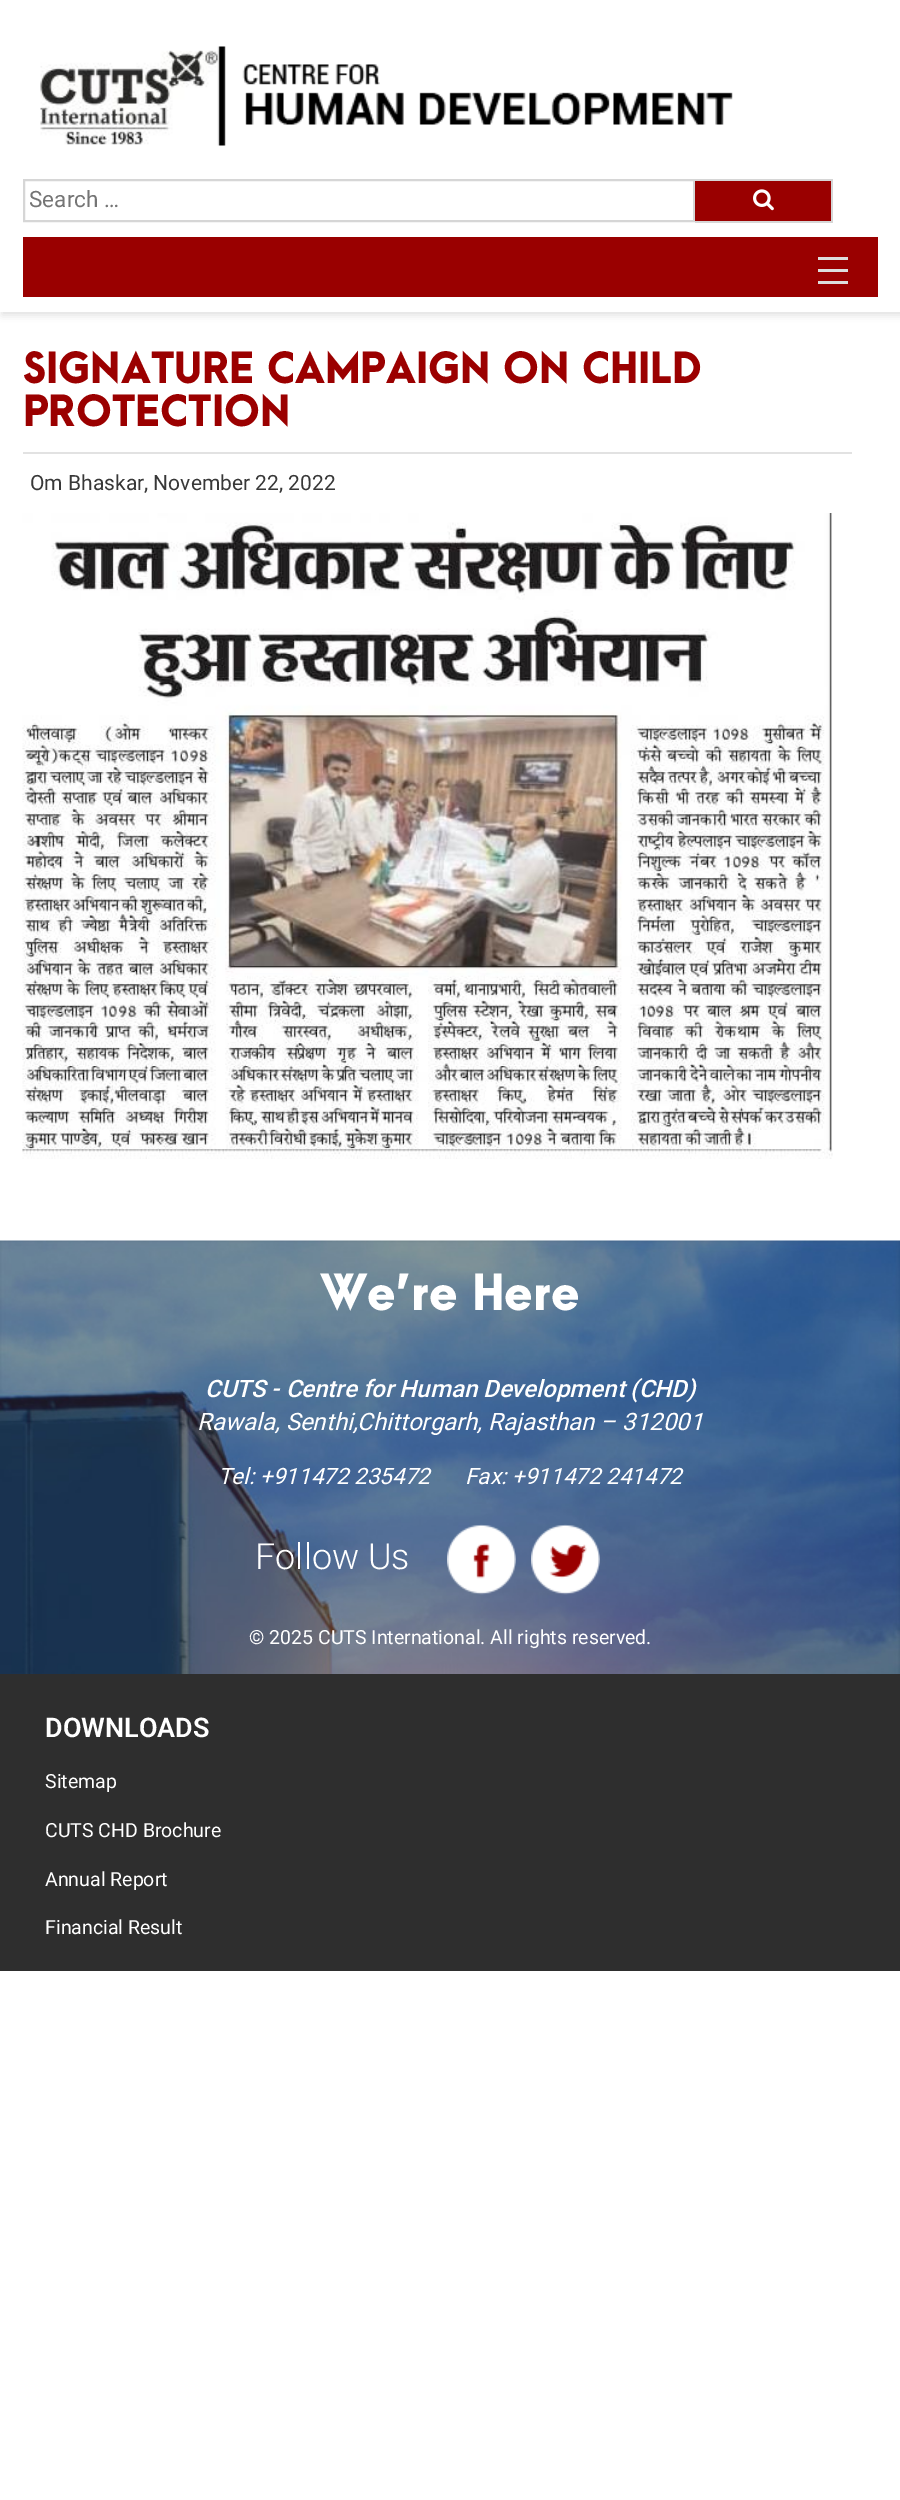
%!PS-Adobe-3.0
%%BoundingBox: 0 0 900 2500
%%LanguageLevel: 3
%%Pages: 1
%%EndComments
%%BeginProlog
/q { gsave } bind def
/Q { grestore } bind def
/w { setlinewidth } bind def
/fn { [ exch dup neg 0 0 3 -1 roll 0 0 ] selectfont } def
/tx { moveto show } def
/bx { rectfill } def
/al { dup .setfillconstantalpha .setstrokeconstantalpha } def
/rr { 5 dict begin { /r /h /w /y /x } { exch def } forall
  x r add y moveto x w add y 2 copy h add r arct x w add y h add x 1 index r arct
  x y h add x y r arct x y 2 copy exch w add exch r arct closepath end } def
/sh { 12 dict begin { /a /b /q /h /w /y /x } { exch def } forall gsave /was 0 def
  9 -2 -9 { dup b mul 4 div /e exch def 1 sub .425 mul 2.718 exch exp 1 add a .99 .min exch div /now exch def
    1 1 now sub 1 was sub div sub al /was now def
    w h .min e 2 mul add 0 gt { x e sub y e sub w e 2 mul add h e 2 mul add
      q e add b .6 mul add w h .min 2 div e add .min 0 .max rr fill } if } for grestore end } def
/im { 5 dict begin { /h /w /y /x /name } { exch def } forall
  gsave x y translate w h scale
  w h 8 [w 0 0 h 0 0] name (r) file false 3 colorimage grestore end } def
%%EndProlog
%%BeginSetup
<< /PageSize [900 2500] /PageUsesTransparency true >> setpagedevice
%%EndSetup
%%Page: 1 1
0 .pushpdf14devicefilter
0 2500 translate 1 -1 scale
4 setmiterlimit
1 setgray
0 0 900 2500 bx
q
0 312 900 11 rectclip
0.871 setgray
2 3 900 312 0 4 1 sh
Q
(image0.raw) 40 46 693 100 im
0.839 setgray
2 w
24 180 670 41 rectstroke
/Roboto-Regular 22.5 fn
0.459 setgray
(Search …) 29 207 tx
0.604 0 0 setrgbcolor
695 181 136 40 bx
0.839 setgray
695 179 138 2 bx
831 179 2 43 bx
695 221 138 2 bx
(image1.raw) 753 189 21 22 im
0.604 0 0 setrgbcolor
23 237 855 60 bx
0.867 setgray
818 257 30 3 bx
818 269 30 3 bx
818 281 30 3 bx
0.886 setgray
23 452 829 2 bx
/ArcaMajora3-Black 39 fn
0.608 0 0 setrgbcolor
(SIGNATURE CAMPAIGN ON CHILD) 23 383 tx
(PROTECTION) 23 426 tx
/Roboto-Regular 21 fn
0.22 setgray
(Om Bhaskar, November 22, 2022) 30 490 tx
(image2.raw) 22 513 811 646 im
0.18 setgray
0 1674 900 297 bx
(image3.raw) 0 1240 900 434 im
/ArcaMajora3-Black 45 fn
1 setgray
(We’re Here) 320 1310 tx
/Roboto-MediumItalic 24 fn
(CUTS - Centre for Human Development \(CHD\)) 205 1397 tx
/Roboto-Italic 24 fn
(Rawala, Senthi,Chittorgarh, Rajasthan – 312001) 197 1430 tx
/Roboto-Italic 22.5 fn
(Tel: +911472 235472) 218 1484 tx
(Fax: +911472 241472) 465 1484 tx
/Roboto-Light 36 fn
(Follow Us) 255 1569 tx
(image4.raw) 447 1524 69 71 im
(image5.raw) 531 1524 69 71 im
/Roboto-Regular 19.5 fn
(© 2025 CUTS International. All rights reserved.) 249 1644 tx
/Roboto-SemiBold 27 fn
(DOWNLOADS) 45 1737 tx
/Roboto-Regular 19.5 fn
(Sitemap) 45 1788 tx
(CUTS CHD Brochure) 45 1837 tx
(Annual Report) 45 1886 tx
(Financial Result) 45 1934 tx
.poppdf14devicefilter showpage
%%EOF
